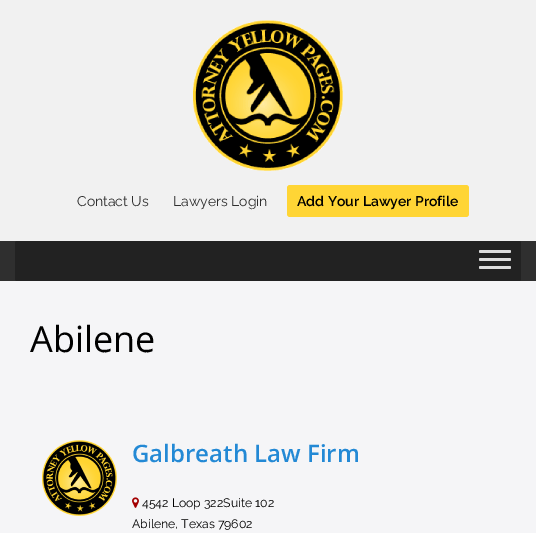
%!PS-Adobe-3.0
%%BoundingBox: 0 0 536 533
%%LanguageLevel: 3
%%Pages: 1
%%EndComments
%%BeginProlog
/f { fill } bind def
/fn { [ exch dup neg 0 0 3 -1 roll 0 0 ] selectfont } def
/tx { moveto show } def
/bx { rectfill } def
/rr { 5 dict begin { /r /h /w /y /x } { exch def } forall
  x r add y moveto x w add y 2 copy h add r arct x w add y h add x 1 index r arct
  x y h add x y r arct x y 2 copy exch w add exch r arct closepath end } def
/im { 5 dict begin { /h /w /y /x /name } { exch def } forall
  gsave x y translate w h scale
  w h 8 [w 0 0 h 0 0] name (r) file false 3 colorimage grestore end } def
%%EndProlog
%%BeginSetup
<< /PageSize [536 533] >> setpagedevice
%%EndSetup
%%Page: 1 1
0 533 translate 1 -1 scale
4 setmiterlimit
0.961 0.961 0.969 setrgbcolor
0 0 536 533 bx
0.945 setgray
0 0 536 241 bx
(image0.raw) 193 20 150 151 im
/Raleway-Regular 14 fn
0.184 setgray
(Contact Us) 77 206 tx
(Lawyers Login) 173 206 tx
1 0.835 0.208 setrgbcolor
287 185 182 32 3 rr f
/Raleway-SemiBold 14 fn
0 setgray
(Add Your Lawyer Profile) 297 206 tx
0.184 setgray
0 241 536 40 bx
0.133 setgray
15 241 506 40 2 rr f
0.867 setgray
479 250 32 3 1.5 rr f
479 258 32 3 1.5 rr f
479 266 32 3 1.5 rr f
/OpenSans-Regular 36 fn
0 setgray
(Abilene) 30 352 tx
(image1.raw) 42 440 75 76 im
/OpenSans-SemiBold 24 fn
0.137 0.537 0.835 setrgbcolor
(Galbreath Law Firm) 132 462 tx
(image2.raw) 132 497 7 11 im
/Raleway-Regular 12.25 fn
0 setgray
(4542 Loop 322Suite 102) 142 507 tx
(Abilene, Texas 79602) 132 528 tx
showpage
%%EOF
